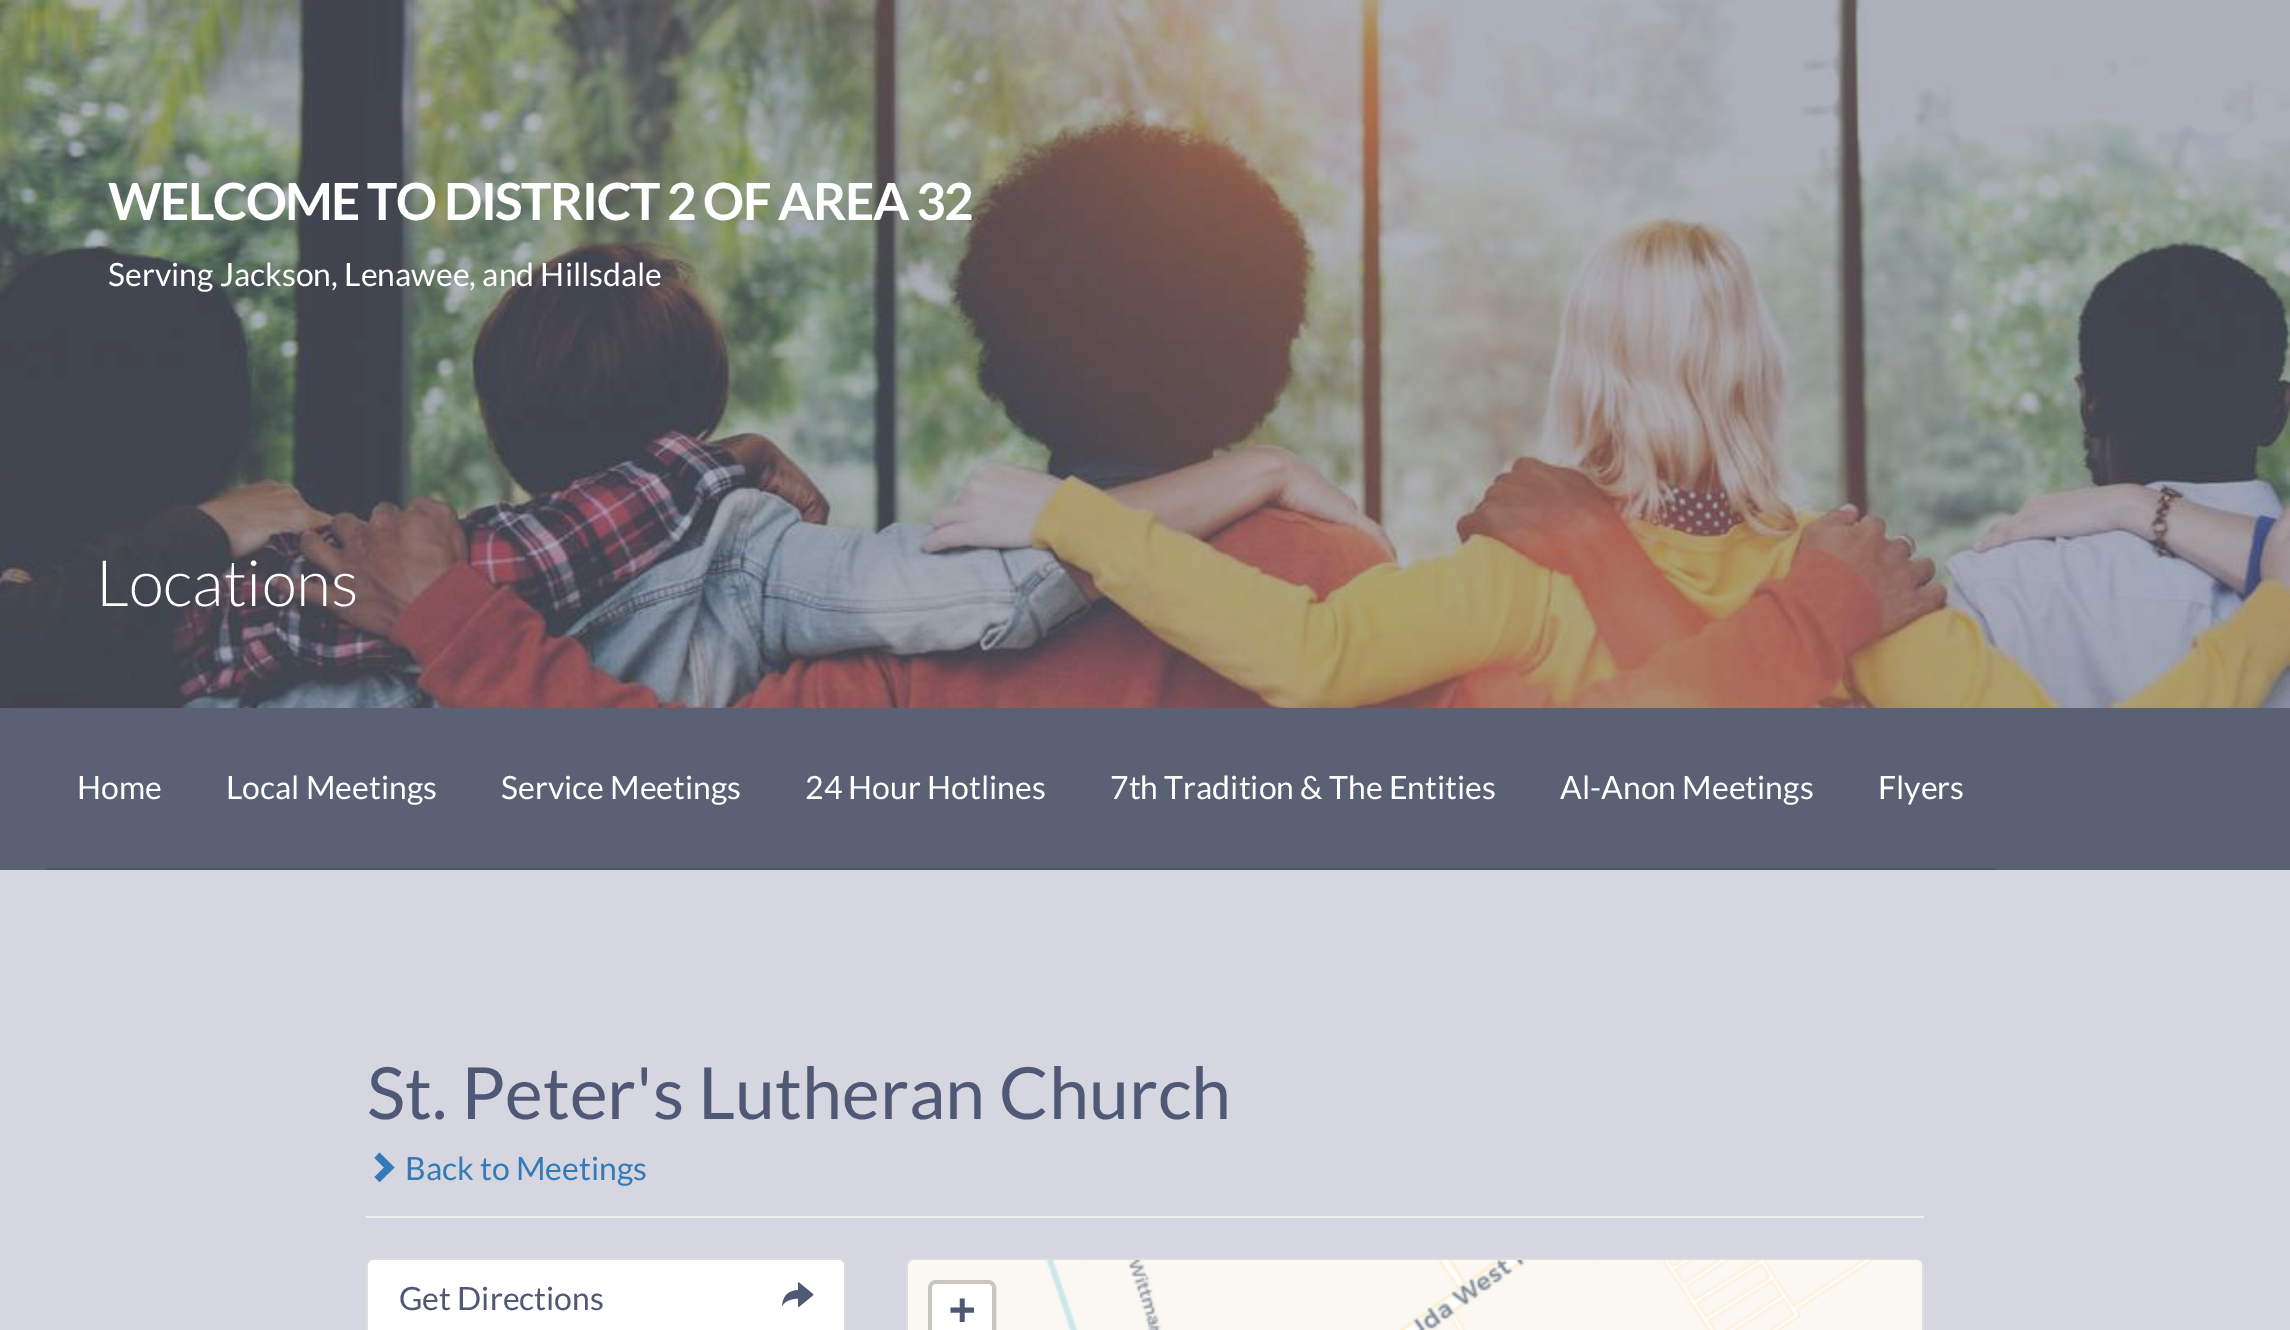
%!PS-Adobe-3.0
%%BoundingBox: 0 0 2290 1330
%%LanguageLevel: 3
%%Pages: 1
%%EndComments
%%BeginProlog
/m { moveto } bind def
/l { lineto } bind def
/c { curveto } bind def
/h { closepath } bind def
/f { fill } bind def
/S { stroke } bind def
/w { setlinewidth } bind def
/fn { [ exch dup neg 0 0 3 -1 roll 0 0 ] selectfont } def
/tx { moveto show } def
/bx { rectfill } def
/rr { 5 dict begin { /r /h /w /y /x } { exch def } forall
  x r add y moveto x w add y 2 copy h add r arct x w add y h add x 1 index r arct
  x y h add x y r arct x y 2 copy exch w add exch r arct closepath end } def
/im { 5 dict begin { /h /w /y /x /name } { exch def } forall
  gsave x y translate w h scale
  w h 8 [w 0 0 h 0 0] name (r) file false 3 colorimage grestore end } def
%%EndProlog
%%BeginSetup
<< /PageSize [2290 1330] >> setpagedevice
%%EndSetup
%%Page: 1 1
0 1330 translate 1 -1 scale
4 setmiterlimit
0.835 0.839 0.878 setrgbcolor
0 0 2290 1330 bx
(image0.raw) 0 0 2290 708 im
/Lato-Bold 51.25 fn
1 setgray
108 220 m -1.55 0 (WELCOME TO DISTRICT 2 OF AREA 32) ashow
/Lato-Regular 32 fn
(Serving Jackson, Lenawee, and Hillsdale) 108 286 tx
/Lato-Light 64 fn
(Locations) 96 606 tx
0.353 0.38 0.459 setrgbcolor
0 708 2290 162 bx
0.318 0.341 0.412 setrgbcolor
46 868 1950 2 bx
/Lato-Regular 32 fn
1 setgray
(Home) 77 799 tx
(Local Meetings) 226 799 tx
(Service Meetings) 501 799 tx
(24 Hour Hotlines) 805 799 tx
(7th Tradition & The Entities) 1110 799 tx
(Al-Anon Meetings) 1560 799 tx
(Flyers) 1878 799 tx
0.933 setgray
366 1216 1558 2 bx
/Lato-Regular 72 fn
0.31 0.345 0.459 setrgbcolor
(St. Peter's Lutheran Church) 367 1119 tx
0.2 0.478 0.718 setrgbcolor
394.5 1167.5 m 379.5 1182 l 374.5 1177 l 384 1167.5 l 374.5 1158 l 379.5 1152.5 l h f
/Lato-Regular 32 fn
(Back to Meetings) 405 1180 tx
0.867 setgray
2 w
367 1259 478 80 7 rr S
1 setgray
368 1260 476 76 6 rr f
0.31 0.345 0.459 setrgbcolor
(Get Directions) 399 1310 tx
(image1.raw) 782 1282 32 26 im
0.867 setgray
907 1259 1016 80 7 rr S
(image2.raw) 908 1260 174 70 im
(image3.raw) 1082 1260 512 70 im
(image4.raw) 1594 1260 328 70 im
0.788 0.776 0.761 setrgbcolor
4 w
930 1282 64 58 6 rr S
1 setgray
936 1284 m 988 1284 l 990 1284 992 1286 992 1288 c 992 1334 l 932 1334 l 932 1288 l 932 1286 934 1284 936 1284 c h f
/DejaVuSansMono-Bold 44 fn
0.31 0.345 0.459 setrgbcolor
(+) 949 1324 tx
showpage
%%EOF
